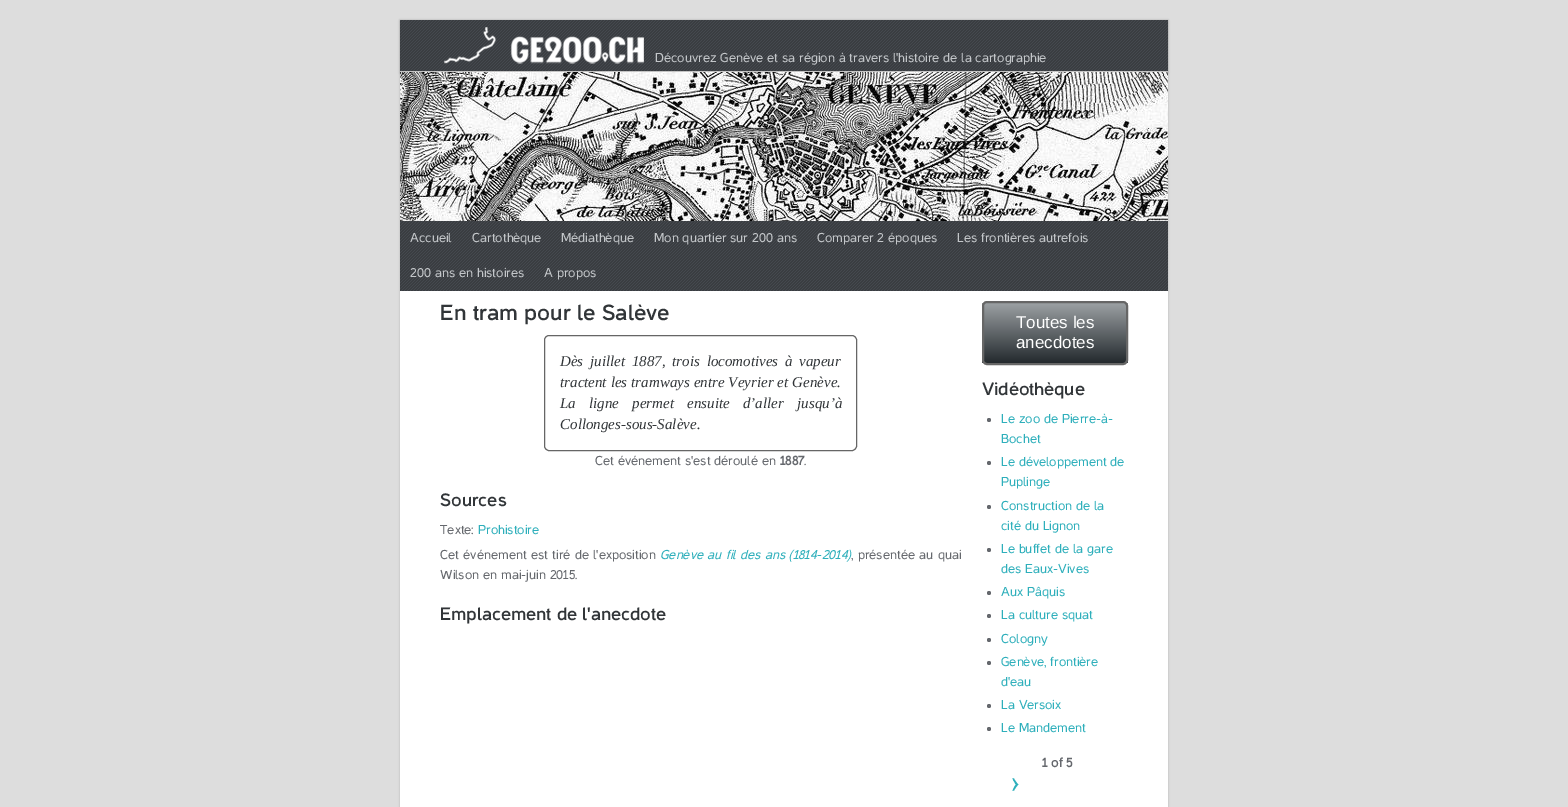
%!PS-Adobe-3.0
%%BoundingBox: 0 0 1568 807
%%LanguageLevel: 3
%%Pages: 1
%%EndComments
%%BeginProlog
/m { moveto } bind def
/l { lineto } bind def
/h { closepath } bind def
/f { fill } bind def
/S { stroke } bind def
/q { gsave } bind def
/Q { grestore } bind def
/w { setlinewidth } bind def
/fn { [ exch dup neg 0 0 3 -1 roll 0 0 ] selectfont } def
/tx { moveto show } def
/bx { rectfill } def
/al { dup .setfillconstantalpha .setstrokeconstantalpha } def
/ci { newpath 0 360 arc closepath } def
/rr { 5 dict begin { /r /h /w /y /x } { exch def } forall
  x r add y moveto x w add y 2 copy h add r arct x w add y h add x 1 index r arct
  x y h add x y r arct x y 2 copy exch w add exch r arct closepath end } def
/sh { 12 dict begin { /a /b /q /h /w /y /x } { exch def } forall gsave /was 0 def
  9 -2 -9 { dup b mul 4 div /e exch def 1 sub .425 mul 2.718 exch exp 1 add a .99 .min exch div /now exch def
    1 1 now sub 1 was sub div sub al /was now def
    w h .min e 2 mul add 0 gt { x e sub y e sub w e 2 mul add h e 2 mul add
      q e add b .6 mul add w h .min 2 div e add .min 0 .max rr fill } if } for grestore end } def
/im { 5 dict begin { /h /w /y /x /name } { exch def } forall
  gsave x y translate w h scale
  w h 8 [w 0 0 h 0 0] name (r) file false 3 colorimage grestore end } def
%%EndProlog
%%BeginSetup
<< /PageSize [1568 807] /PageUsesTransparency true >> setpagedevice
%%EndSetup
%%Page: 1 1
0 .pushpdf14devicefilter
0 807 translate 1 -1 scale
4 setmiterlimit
0.867 setgray
0 0 1568 807 bx
0 setgray
400 20 768 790 0 1 0.2 sh
1 setgray
400 291 768 516 bx
0 setgray
400 21 768 52 0 1 0.2 sh
(image0.raw) 400 20 768 51 im
0.769 setgray
400 71 768 1 bx
(image1.raw) 444 27 200 37 im
/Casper-Regular 13 fn
0.769 0.78 0.792 setrgbcolor
(Découvrez Genève et sa région à travers l'histoire de la cartographie) 655 62 tx
(image2.raw) 400 221 768 70 im
(image3.raw) 400 72 768 149 im
(Accueil) 410 242 tx
(Cartothèque) 472 242 tx
(Médiathèque) 561 242 tx
(Mon quartier sur 200 ans) 654 242 tx
(Comparer 2 époques) 817 242 tx
(Les frontières autrefois) 957 242 tx
(200 ans en histoires) 410 277 tx
(A propos) 544 277 tx
/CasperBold-Bold 22 fn
0.192 0.208 0.22 setrgbcolor
(En tram pour le Salève) 440 320 tx
0.4 setgray
544.5 335.5 312 115 4.5 rr S
/LiberationSerif-Italic 15 fn
0.192 0.208 0.22 setrgbcolor
560 366 m 3 0 32 (Dès juillet 1887, trois locomotives à vapeur) widthshow
560 387 m 0.25 0 32 (tractent les tramways entre Veyrier et Genève.) widthshow
560 408 m 9.5 0 32 (La ligne permet ensuite d’aller jusqu’à) widthshow
(Collonges-sous-Salève.) 560 429 tx
/Casper-Regular 13 fn
0.396 0.408 0.427 setrgbcolor
(Cet événement s'est déroulé en) 595 465 tx
/Casper-Bold 13 fn
(1887) 780 465 tx
/Casper-Regular 13 fn
(.) 804 465 tx
/CasperBold-Bold 18 fn
0.192 0.208 0.22 setrgbcolor
(Sources) 440 506 tx
/Casper-Regular 13 fn
0.396 0.408 0.427 setrgbcolor
(Texte:) 440 534 tx
0.18 0.686 0.733 setrgbcolor
(Prohistoire) 478 534 tx
0.396 0.408 0.427 setrgbcolor
440 559 m 0.5 0 32 (Cet événement est tiré de l'exposition) widthshow
/Casper-Italic 13 fn
0.18 0.686 0.733 setrgbcolor
660 559 m 0.5 0 32 (Genève au fil des ans \(1814-2014\)) widthshow
/Casper-Regular 13 fn
0.396 0.408 0.427 setrgbcolor
851 559 m 0.5 0 32 (, présentée au quai) widthshow
(Wilson en mai-juin 2015.) 440 579 tx
/CasperBold-Bold 18 fn
0.192 0.208 0.22 setrgbcolor
(Emplacement de l'anecdote) 440 620 tx
q
982 301 146 64 5 rr clip newpath
q 982 303 m 1128 303 l 1128 363 l 982 363 l h clip newpath
<< /ShadingType 2 /ColorSpace /DeviceRGB /Coords [1055 303 1055 363] /Extend [true true] /Function << /FunctionType 2 /Domain [0 1] /C0 [0.608 0.627 0.639] /C1 [0.141 0.165 0.18] /N 1 >> >> shfill Q
Q
0.4 setgray
2 w
983 302 144 62 4 rr S
/LiberationSans-Regular 17 fn
1 setgray
(Toutes les) 1016 328 tx
(anecdotes) 1016 348 tx
/CasperBold-Bold 18 fn
0.192 0.208 0.22 setrgbcolor
(Vidéothèque) 982 395 tx
0.396 0.408 0.427 setrgbcolor
989 420 2 ci f
/Casper-Regular 13 fn
0.18 0.686 0.733 setrgbcolor
(Le zoo de Pierre-à-) 1001 423 tx
(Bochet) 1001 443 tx
0.396 0.408 0.427 setrgbcolor
989 463 2 ci f
0.18 0.686 0.733 setrgbcolor
(Le développement de) 1001 466 tx
(Puplinge) 1001 486 tx
0.396 0.408 0.427 setrgbcolor
989 507 2 ci f
0.18 0.686 0.733 setrgbcolor
(Construction de la) 1001 510 tx
(cité du Lignon) 1001 530 tx
0.396 0.408 0.427 setrgbcolor
989 550 2 ci f
0.18 0.686 0.733 setrgbcolor
(Le buffet de la gare) 1001 553 tx
(des Eaux-Vives) 1001 573 tx
0.396 0.408 0.427 setrgbcolor
989 593 2 ci f
0.18 0.686 0.733 setrgbcolor
(Aux Pâquis) 1001 596 tx
0.396 0.408 0.427 setrgbcolor
989 616 2 ci f
0.18 0.686 0.733 setrgbcolor
(La culture squat) 1001 619 tx
0.396 0.408 0.427 setrgbcolor
989 640 2 ci f
0.18 0.686 0.733 setrgbcolor
(Cologny) 1001 643 tx
0.396 0.408 0.427 setrgbcolor
989 663 2 ci f
0.18 0.686 0.733 setrgbcolor
(Genève, frontière) 1001 666 tx
(d'eau) 1001 686 tx
0.396 0.408 0.427 setrgbcolor
989 706 2 ci f
0.18 0.686 0.733 setrgbcolor
(La Versoix) 1001 709 tx
0.396 0.408 0.427 setrgbcolor
989 729 2 ci f
0.18 0.686 0.733 setrgbcolor
(Le Mandement) 1001 732 tx
/Casper-Bold 13 fn
0.396 0.408 0.427 setrgbcolor
(1 of 5) 1042 767 tx
/Casper-Regular 29 fn
0.18 0.686 0.733 setrgbcolor
(›) 1011 792 tx
.poppdf14devicefilter showpage
%%EOF
